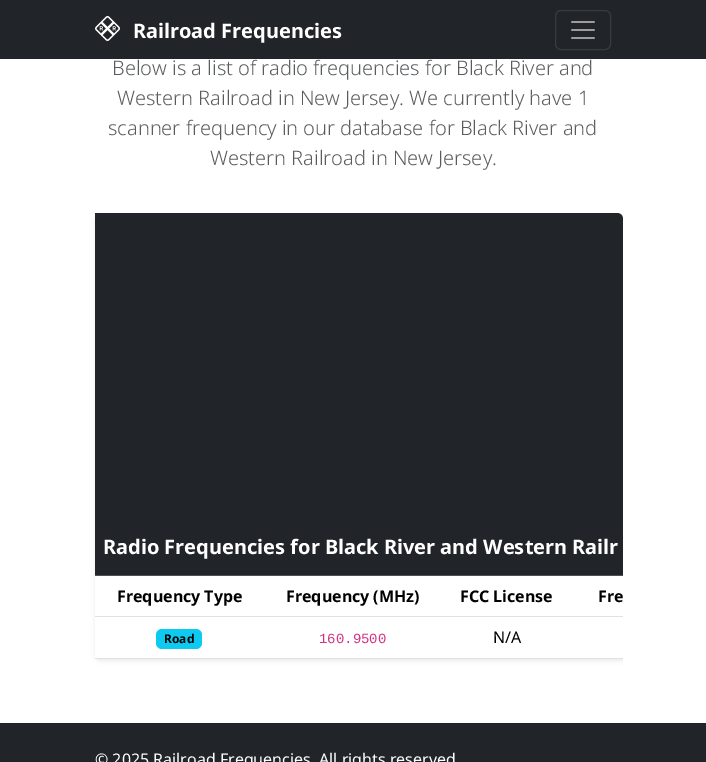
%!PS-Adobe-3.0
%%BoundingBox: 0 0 706 762
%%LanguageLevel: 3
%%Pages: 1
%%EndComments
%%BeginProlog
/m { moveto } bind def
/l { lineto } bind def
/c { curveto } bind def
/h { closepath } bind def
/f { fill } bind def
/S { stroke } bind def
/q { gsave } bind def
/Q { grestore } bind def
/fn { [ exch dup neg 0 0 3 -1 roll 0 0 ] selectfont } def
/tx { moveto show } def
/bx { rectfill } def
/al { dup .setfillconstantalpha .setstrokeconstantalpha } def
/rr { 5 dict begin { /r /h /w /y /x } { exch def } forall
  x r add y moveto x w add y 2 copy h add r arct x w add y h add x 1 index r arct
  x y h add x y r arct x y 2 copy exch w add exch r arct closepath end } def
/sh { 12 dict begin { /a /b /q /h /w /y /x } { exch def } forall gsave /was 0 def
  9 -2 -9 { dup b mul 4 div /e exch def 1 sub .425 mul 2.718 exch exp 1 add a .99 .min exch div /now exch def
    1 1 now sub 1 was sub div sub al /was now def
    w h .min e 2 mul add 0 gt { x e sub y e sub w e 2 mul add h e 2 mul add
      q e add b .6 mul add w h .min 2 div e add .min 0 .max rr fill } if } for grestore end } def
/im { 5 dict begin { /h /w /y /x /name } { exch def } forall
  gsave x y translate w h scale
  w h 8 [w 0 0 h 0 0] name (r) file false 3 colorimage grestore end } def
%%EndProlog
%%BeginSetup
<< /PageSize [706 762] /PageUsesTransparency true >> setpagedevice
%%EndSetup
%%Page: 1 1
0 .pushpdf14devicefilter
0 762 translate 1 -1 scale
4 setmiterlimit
1 setgray
0 0 706 762 bx
0.129 0.145 0.161 setrgbcolor
0 0 706 59 bx
(image0.raw) 95 16 25 25 im
/NotoSans-Bold 20 fn
1 setgray
(Railroad Frequencies) 133 38 tx
0.216 0.231 0.243 setrgbcolor
555.5 10.5 55 39 5.5 rr S
(image1.raw) 571 21 24 18 im
/NotoSans-Light 20 fn
0.349 0.361 0.373 setrgbcolor
(Below is a list of radio frequencies for Black River and) 112 75 tx
(Western Railroad in New Jersey. We currently have 1) 117 105 tx
(scanner frequency in our database for Black River and) 108 135 tx
(Western Railroad in New Jersey.) 210 165 tx
q
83 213 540 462 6 rr clip newpath
0 setgray
95 215 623 446 6 2 0.07 sh
Q
1 setgray
101 213 m 617 213 l 620.5 213 623 215.5 623 219 c 623 659 l 101 659 l 97.5 659 95 656.5 95 653 c 95 219 l 95 215.5 97.5 213 101 213 c h f
0.129 0.145 0.161 setrgbcolor
95 213 m 617 213 l 620.5 213 623 215.5 623 219 c 623 575 l 95 575 l h f
0.302 0.318 0.329 setrgbcolor
95 575 528 1 bx
/NotoSans-Bold 20 fn
1 setgray
(Radio Frequencies for Black River and Western Railr) 103 554 tx
/NotoSans-Bold 16 fn
0 setgray
(Frequency Type) 117 602 tx
(Frequency \(MHz\)) 286 602 tx
(FCC License) 460 602 tx
0.871 0.886 0.902 setrgbcolor
95 616 528 1 bx
0 setgray
(Fre) 598 602 tx
1 setgray
95 655 2 3 bx
0.051 0.792 0.941 setrgbcolor
156 629 46 20 6 rr f
/NotoSans-Bold 12 fn
0 setgray
(Road) 164 643 tx
/LiberationMono-Regular 14 fn
0.839 0.2 0.518 setrgbcolor
(160.9500) 319 643 tx
/NotoSans-Regular 16 fn
0 setgray
(N/A) 493 643 tx
0.871 0.886 0.902 setrgbcolor
95 658 528 1 bx
0.129 0.145 0.161 setrgbcolor
0 723 706 39 bx
1 setgray
(© 2025 Railroad Frequencies. All rights reserved) 95 765 tx
.poppdf14devicefilter showpage
%%EOF
